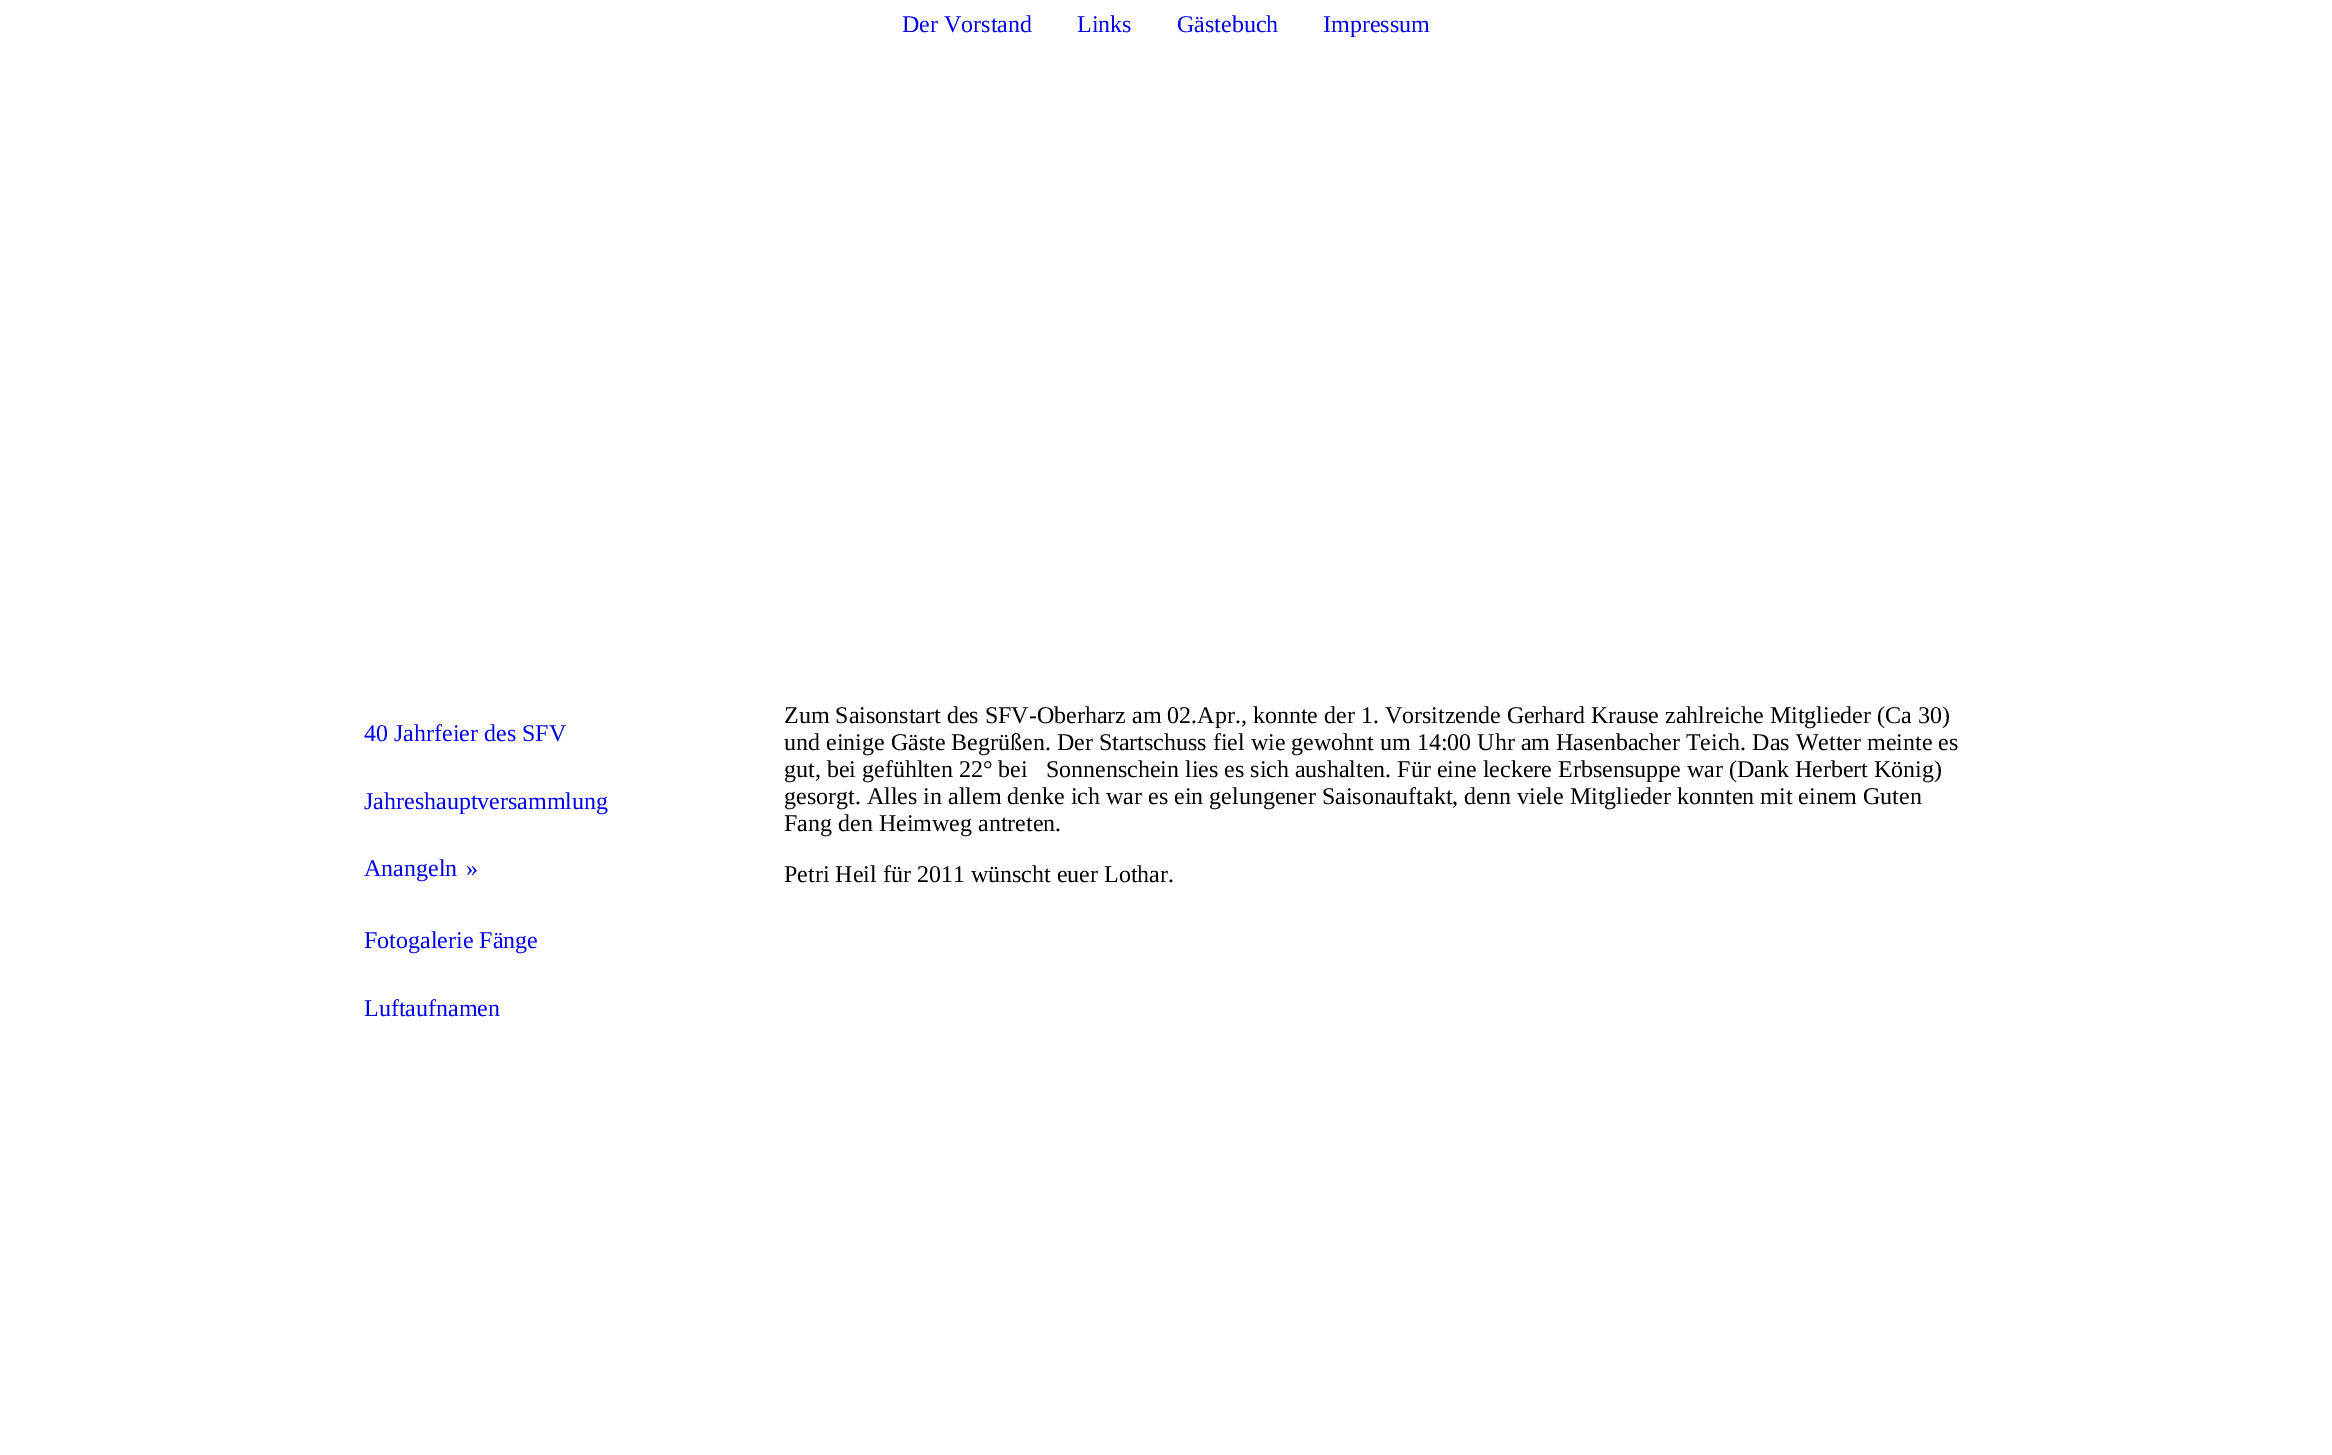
%!PS-Adobe-3.0
%%BoundingBox: 0 0 2332 1455
%%LanguageLevel: 3
%%Pages: 1
%%EndComments
%%BeginProlog
/fn { [ exch dup neg 0 0 3 -1 roll 0 0 ] selectfont } def
/tx { moveto show } def
/bx { rectfill } def
%%EndProlog
%%BeginSetup
<< /PageSize [2332 1455] >> setpagedevice
%%EndSetup
%%Page: 1 1
0 1455 translate 1 -1 scale
4 setmiterlimit
1 setgray
0 0 2332 1455 bx
/LiberationSerif-Regular 24 fn
0 0 0.933 setrgbcolor
(Der Vorstand) 902 32 tx
(Links) 1077 32 tx
(Gästebuch) 1177 32 tx
(Impressum) 1323 32 tx
(40 Jahrfeier des SFV) 364 741 tx
(Jahreshauptversammlung) 364 809 tx
(Anangeln) 364 876 tx
(») 466 876 tx
(Fotogalerie Fänge) 364 948 tx
(Luftaufnamen) 364 1016 tx
0 setgray
(Zum Saisonstart des SFV-Oberharz am 02.Apr., konnte der 1. Vorsitzende Gerhard Krause zahlreiche Mitglieder \(Ca 30\)) 784 723 tx
(und einige Gäste Begrüßen. Der Startschuss fiel wie gewohnt um 14:00 Uhr am Hasenbacher Teich. Das Wetter meinte es) 784 750 tx
(gut, bei gefühlten 22° bei   Sonnenschein lies es sich aushalten. Für eine leckere Erbsensuppe war \(Dank Herbert König\)) 784 777 tx
(gesorgt. Alles in allem denke ich war es ein gelungener Saisonauftakt, denn viele Mitglieder konnten mit einem Guten) 784 804 tx
(Fang den Heimweg antreten.) 784 831 tx
(Petri Heil für 2011 wünscht euer Lothar.) 784 882 tx
showpage
%%EOF
